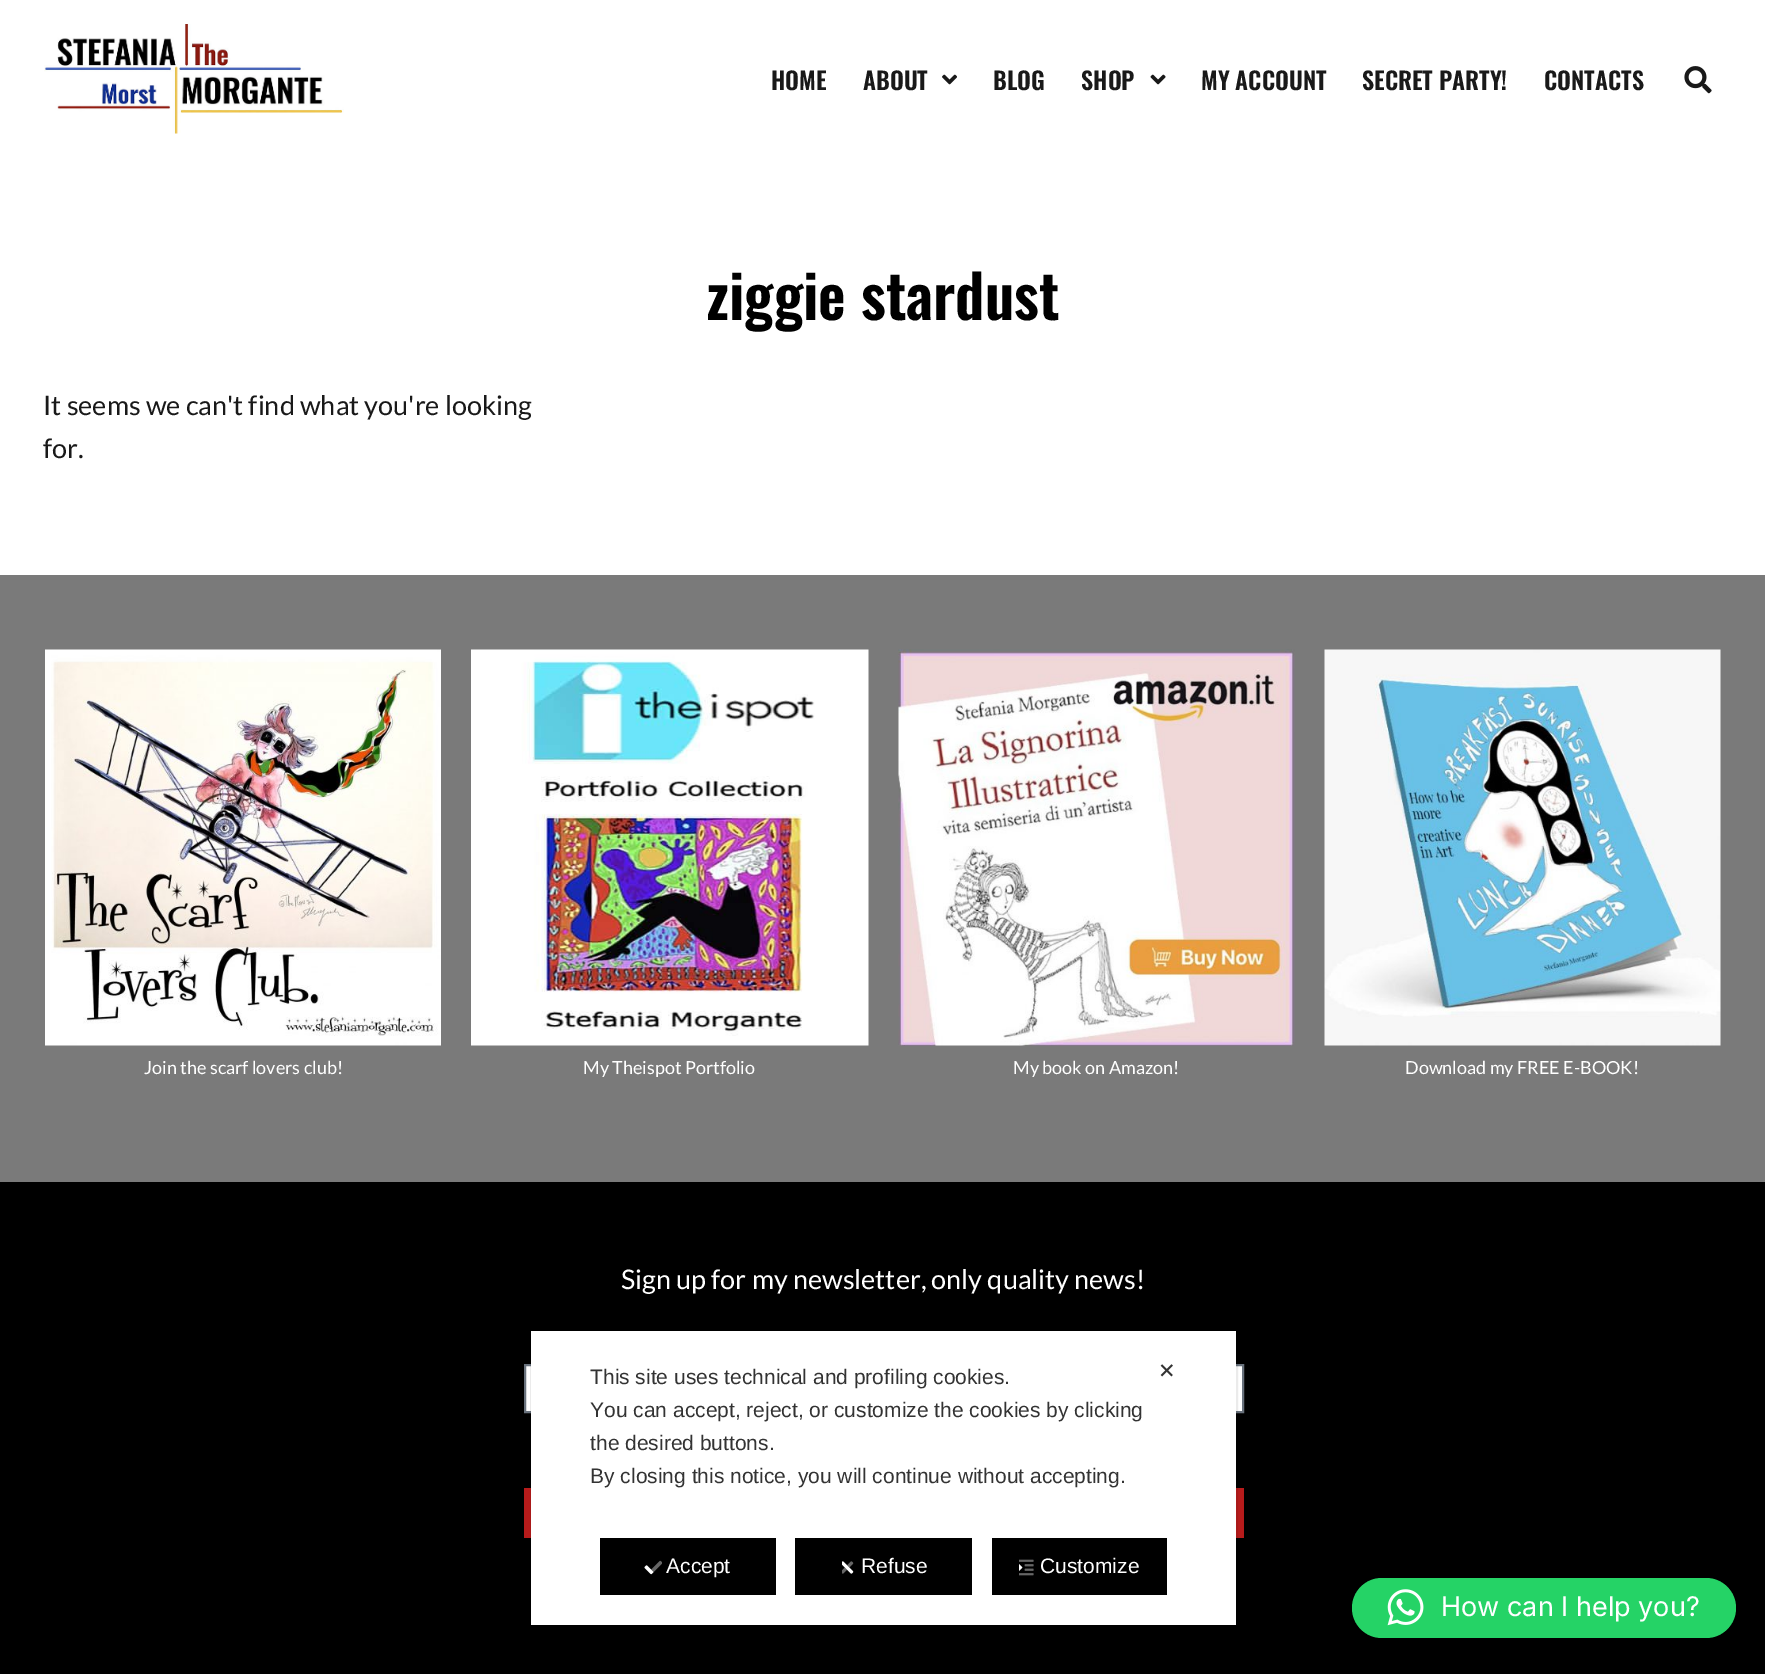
%!PS-Adobe-3.0
%%BoundingBox: 0 0 1765 1674
%%LanguageLevel: 3
%%Pages: 1
%%EndComments
%%BeginProlog
/f { fill } bind def
/w { setlinewidth } bind def
/fn { [ exch dup neg 0 0 3 -1 roll 0 0 ] selectfont } def
/tx { moveto show } def
/bx { rectfill } def
/al { dup .setfillconstantalpha .setstrokeconstantalpha } def
/rr { 5 dict begin { /r /h /w /y /x } { exch def } forall
  x r add y moveto x w add y 2 copy h add r arct x w add y h add x 1 index r arct
  x y h add x y r arct x y 2 copy exch w add exch r arct closepath end } def
/im { 5 dict begin { /h /w /y /x /name } { exch def } forall
  gsave x y translate w h scale
  w h 8 [w 0 0 h 0 0] name (r) file false 3 colorimage grestore end } def
%%EndProlog
%%BeginSetup
<< /PageSize [1765 1674] /PageUsesTransparency true >> setpagedevice
%%EndSetup
%%Page: 1 1
0 .pushpdf14devicefilter
0 1674 translate 1 -1 scale
4 setmiterlimit
1 setgray
0 0 1765 1674 bx
(image0.raw) 44 24 300 110 im
/Oswald-SemiBold 24 fn
0.098 setgray
(HOME) 771 90 tx
(ABOUT) 863 90 tx
(image1.raw) 942 74 15 11 im
(BLOG) 993 90 tx
(SHOP) 1081 90 tx
(image2.raw) 1150 74 16 11 im
(MY ACCOUNT) 1201 90 tx
(SECRET PARTY!) 1362 90 tx
(CONTACTS) 1544 90 tx
(image3.raw) 1684 66 28 28 im
/Oswald-SemiBold 60 fn
0 setgray
(ziggie stardust) 706 320 tx
/Lato-Regular 27 fn
0.098 setgray
(It seems we can't find what you're looking) 43 415 tx
(for.) 43 458 tx
0.478 setgray
0 575 1765 607 bx
(image4.raw) 45 649 396 397 im
/Lato-Regular 18 fn
1 setgray
(Join the scarf lovers club!) 144 1074 tx
(image5.raw) 471 649 398 397 im
(My Theispot Portfolio) 583 1074 tx
(image6.raw) 898 649 397 397 im
(My book on Amazon!) 1013 1074 tx
(image7.raw) 1324 649 397 397 im
(Download my FREE E-BOOK!) 1405 1074 tx
0 setgray
0 1182 1765 492 bx
/Lato-Regular 27 fn
1 setgray
(Sign up for my newsletter, only quality news!) 621 1289 tx
526 1366 5 45 bx
0.412 0.447 0.49 setrgbcolor
2 w
525 1365 350 47 rectstroke
1 setgray
1236 1366 6 45 bx
0.412 0.447 0.49 setrgbcolor
892 1365 351 47 rectstroke
0.718 0.106 0.106 setrgbcolor
524 1488 720 50 bx
0.08 al
0 setgray
531 1330 706 295 rectstroke
1 al
1 setgray
531 1331 705 294 bx
/LiberationSans-Regular 21 fn
0.2 setgray
(This site uses technical and profiling cookies.) 590 1384 tx
(You can accept, reject, or customize the cookies by clicking) 590 1417 tx
(the desired buttons.) 590 1450 tx
(By closing this notice, you will continue without accepting.) 590 1483 tx
0 setgray
600 1538 176 57 bx
(image8.raw) 644 1560 18 15 im
1 setgray
(Accept) 666 1573 tx
0 setgray
795 1538 177 57 bx
(image9.raw) 842 1561 12 13 im
1 setgray
(Refuse) 861 1573 tx
0 setgray
992 1538 175 57 bx
(image10.raw) 1019 1559 15 17 im
1 setgray
(Customize) 1040 1573 tx
/DejaVuSans-Regular 21 fn
0.2 setgray
(✕) 1158 1378 tx
0.145 0.827 0.4 setrgbcolor
1352 1578 384 60 30 rr f
(image11.raw) 1387 1589 37 37 im
/Inter-Regular 27 fn
1 setgray
(How can I help you?) 1441 1616 tx
.poppdf14devicefilter showpage
%%EOF
